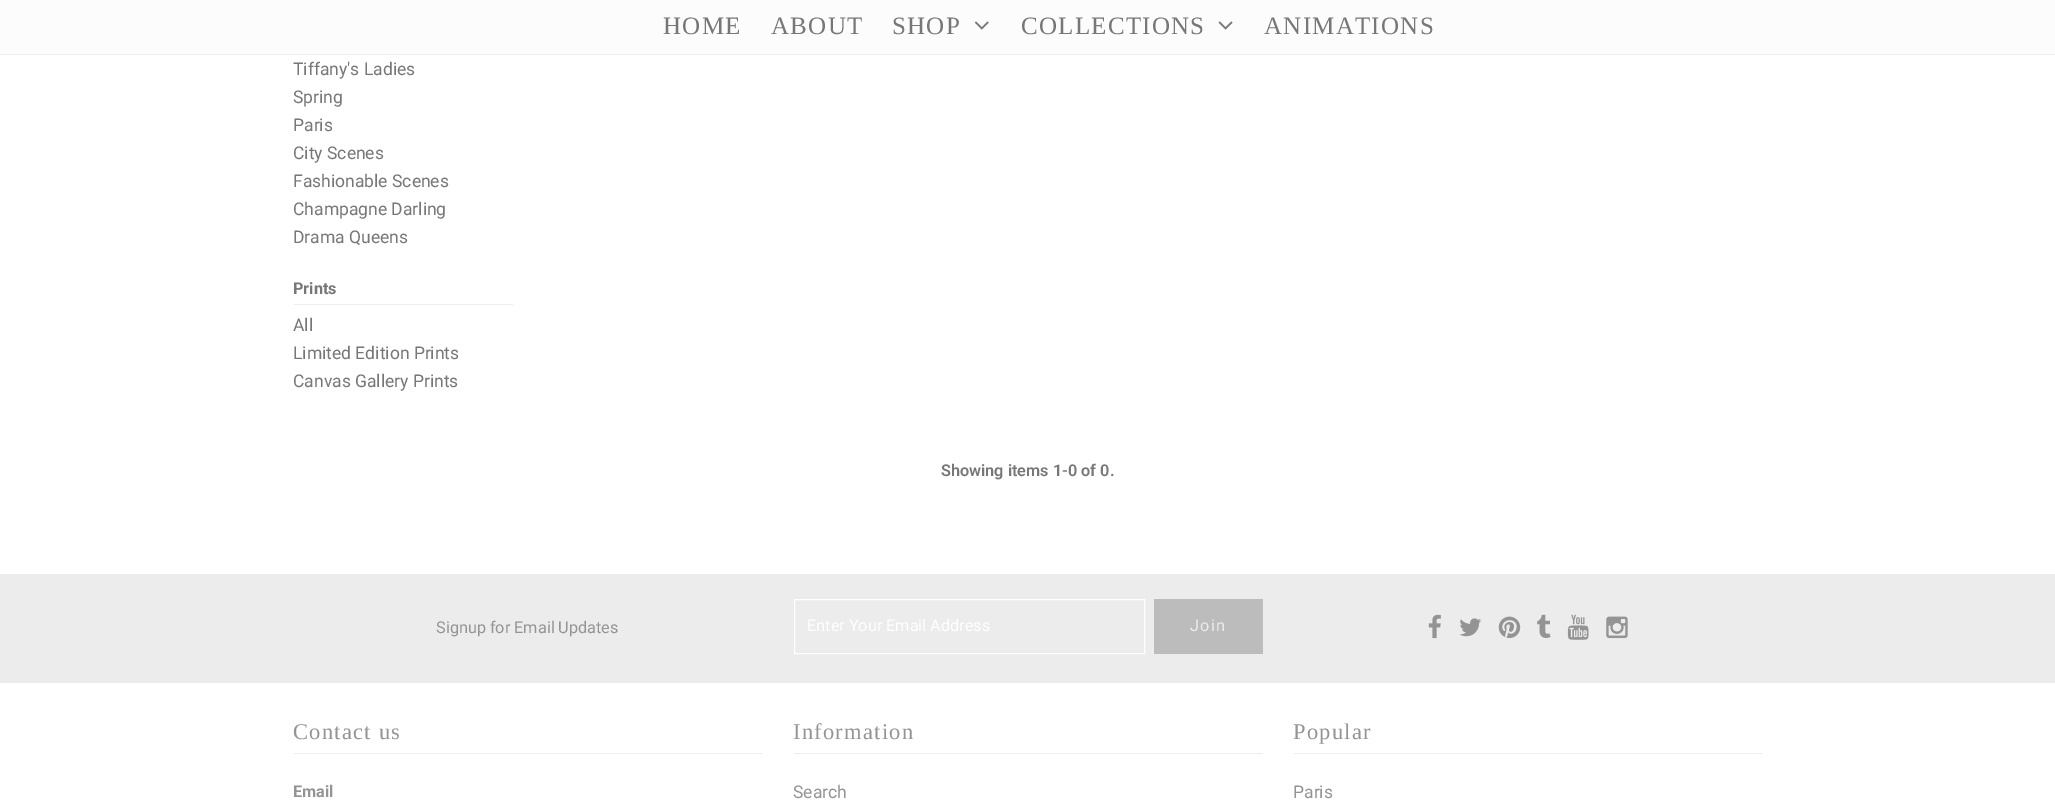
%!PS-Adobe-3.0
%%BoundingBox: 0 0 2055 809
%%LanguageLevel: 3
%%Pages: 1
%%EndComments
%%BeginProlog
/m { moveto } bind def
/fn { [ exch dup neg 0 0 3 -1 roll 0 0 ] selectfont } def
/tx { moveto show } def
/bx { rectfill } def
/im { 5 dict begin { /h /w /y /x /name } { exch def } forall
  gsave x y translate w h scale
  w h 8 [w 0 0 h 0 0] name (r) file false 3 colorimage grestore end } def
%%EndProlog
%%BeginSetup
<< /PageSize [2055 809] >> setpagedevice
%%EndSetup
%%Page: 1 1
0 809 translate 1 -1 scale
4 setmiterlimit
1 setgray
0 0 2055 809 bx
0.988 setgray
0 0 2055 54 bx
0.933 setgray
0 54 2055 1 bx
/LiberationSerif-Regular 25 fn
0.467 setgray
663 34 m 1.25 0 (HOME) ashow
771 34 m 1.25 0 (ABOUT) ashow
892 34 m 1.25 0 (SHOP) ashow
(image0.raw) 974 21 15 9 im
1021 34 m 1.25 0 (COLLECTIONS) ashow
(image1.raw) 1218 21 15 9 im
1264 34 m 1.25 0 (ANIMATIONS) ashow
/Roboto-Regular 17.5 fn
(Tiffany's Ladies) 293 75 tx
(Spring) 293 103 tx
(Paris) 293 131 tx
(City Scenes) 293 159 tx
(Fashionable Scenes) 293 187 tx
(Champagne Darling) 293 215 tx
(Drama Queens) 293 243 tx
0.933 setgray
294 304 219 1 bx
/Roboto-Bold 16.25 fn
0.467 setgray
(Prints) 293 294 tx
/Roboto-Regular 17.5 fn
(All) 293 331 tx
(Limited Edition Prints) 293 359 tx
(Canvas Gallery Prints) 293 387 tx
/Roboto-SemiBold 16.25 fn
(Showing items 1-0 of 0.) 941 476 tx
0.925 setgray
0 574 2055 109 bx
/Roboto-Regular 16.25 fn
0.58 setgray
(Signup for Email Updates) 436 633 tx
1 setgray
794.5 599.5 350 54 rectstroke
(Enter Your Email Address) 807 631 tx
0.737 setgray
1154 599 109 55 bx
0.925 setgray
1190 631 m 1.25 0 (Join) ashow
(image2.raw) 1428 614 13 25 im
(image3.raw) 1459 618 23 19 im
(image4.raw) 1498 616 23 22 im
(image5.raw) 1537 614 14 24 im
(image6.raw) 1567 614 22 26 im
(image7.raw) 1606 616 22 23 im
0.933 setgray
294 753 469 1 bx
/LiberationSerif-Regular 22.5 fn
0.58 setgray
293 739 m 1.25 0 (Contact us) ashow
/Roboto-Bold 16.25 fn
(Email) 293 797 tx
0.933 setgray
794 753 469 1 bx
/LiberationSerif-Regular 22.5 fn
0.58 setgray
793 739 m 1.25 0 (Information) ashow
/Roboto-Regular 17.5 fn
(Search) 793 798 tx
0.933 setgray
1294 753 469 1 bx
/LiberationSerif-Regular 22.5 fn
0.58 setgray
1293 739 m 1.25 0 (Popular) ashow
/Roboto-Regular 17.5 fn
(Paris) 1293 798 tx
showpage
%%EOF
